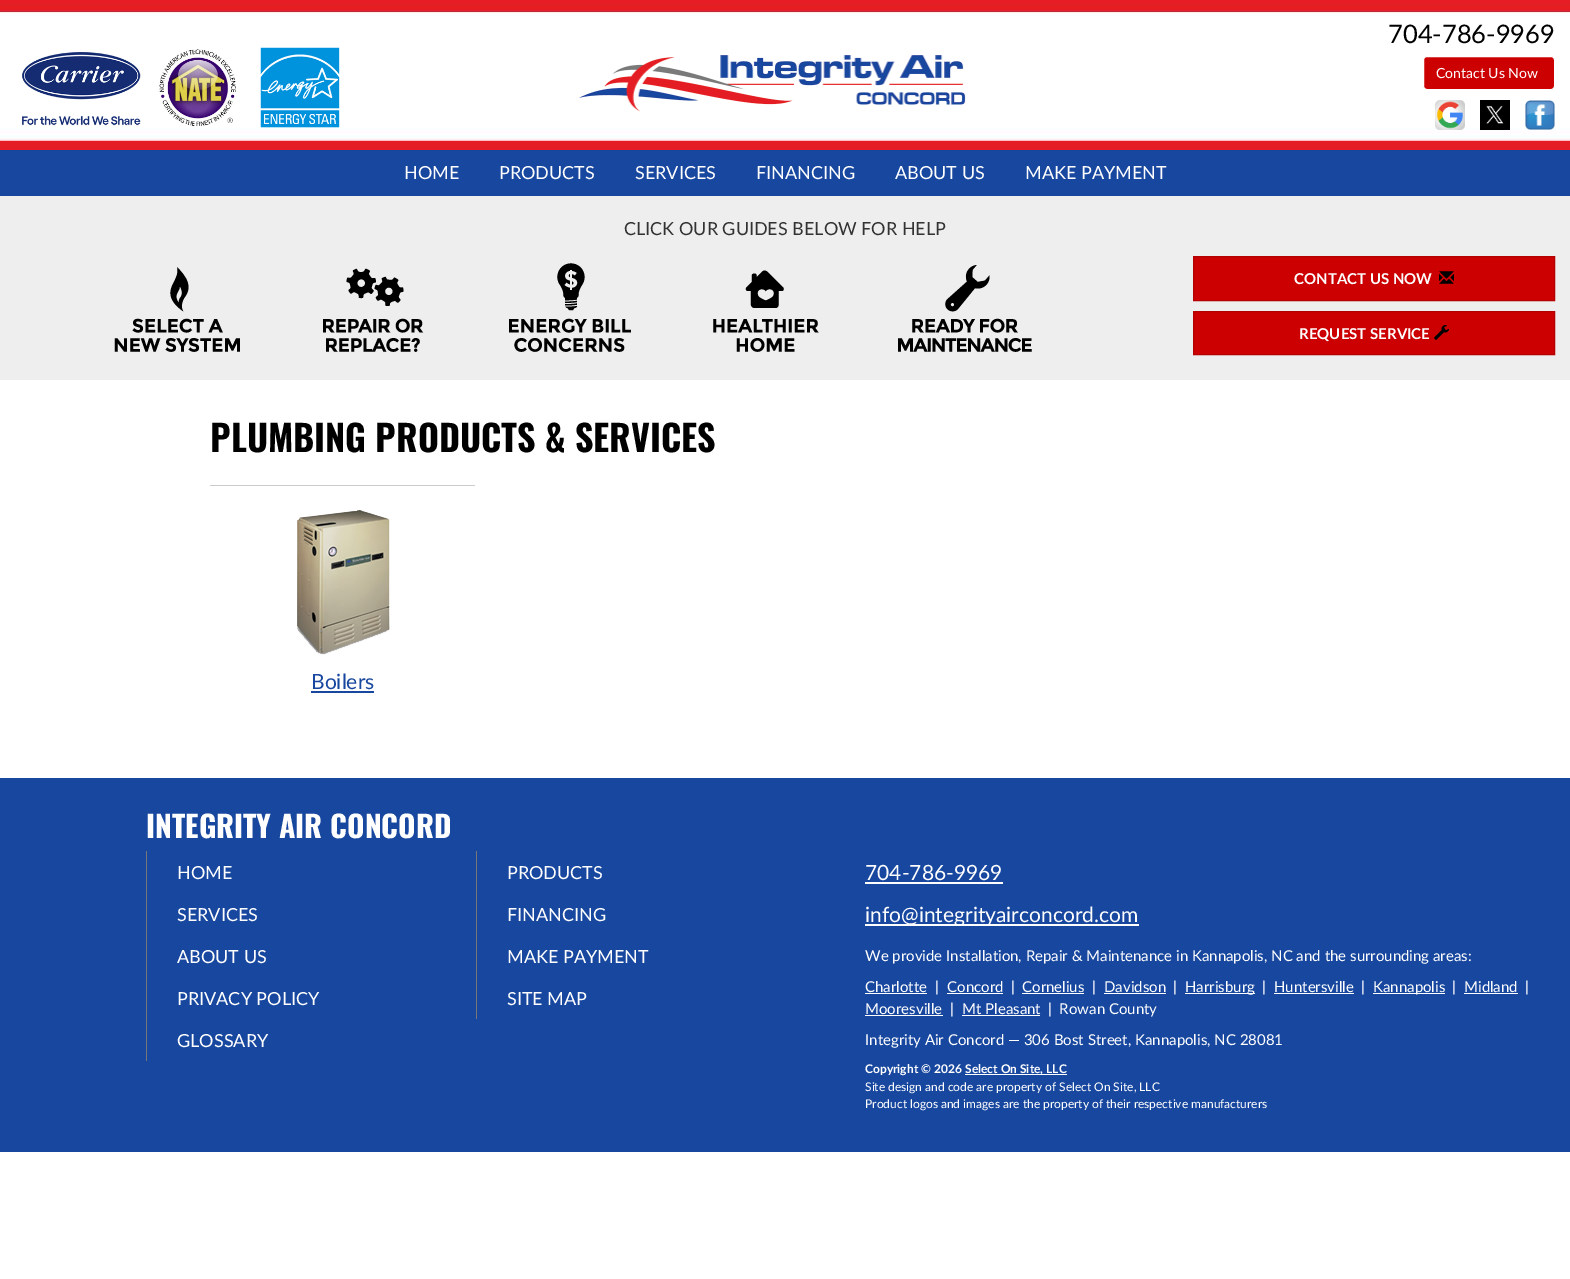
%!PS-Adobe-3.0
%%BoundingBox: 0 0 1570 1279
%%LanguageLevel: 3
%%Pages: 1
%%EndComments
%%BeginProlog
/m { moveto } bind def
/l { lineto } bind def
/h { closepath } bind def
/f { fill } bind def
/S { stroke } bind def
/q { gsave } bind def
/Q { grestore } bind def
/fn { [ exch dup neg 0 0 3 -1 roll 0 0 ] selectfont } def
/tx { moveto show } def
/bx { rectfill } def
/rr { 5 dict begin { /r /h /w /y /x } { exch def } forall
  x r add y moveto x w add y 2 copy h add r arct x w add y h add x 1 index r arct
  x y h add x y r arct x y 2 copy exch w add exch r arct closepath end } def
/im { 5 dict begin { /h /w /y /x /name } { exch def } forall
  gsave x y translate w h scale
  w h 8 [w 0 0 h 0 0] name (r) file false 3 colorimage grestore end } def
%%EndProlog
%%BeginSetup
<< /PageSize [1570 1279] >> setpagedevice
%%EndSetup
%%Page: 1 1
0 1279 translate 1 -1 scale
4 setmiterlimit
1 setgray
0 0 1570 1279 bx
(image0.raw) 0 0 1570 141 im
(image1.raw) 22 47 318 81 im
(image2.raw) 579 55 387 57 im
/Lato-Regular 25.5 fn
0 setgray
(704-786-9969) 1388 43 tx
0.8 0 0 setrgbcolor
1423.5 56.5 131 33 3.5 rr q f Q
1 setgray
S
/Lato-Regular 14 fn
(Contact Us Now) 1436 78 tx
(image3.raw) 1435 100 30 30 im
(image4.raw) 1480 100 30 30 im
(image5.raw) 1525 100 30 30 im
0.898 0.118 0.145 setrgbcolor
0 141 1570 9 bx
0.09 0.278 0.62 setrgbcolor
0 150 1570 46 bx
/Lato-Regular 18 fn
1 setgray
(HOME) 404 179 tx
(PRODUCTS) 499 179 tx
(SERVICES) 635 179 tx
(FINANCING) 756 179 tx
(ABOUT US) 895 179 tx
(MAKE PAYMENT) 1025 179 tx
0.933 setgray
0 196 1570 184 bx
0.2 setgray
(CLICK OUR GUIDES BELOW FOR HELP) 624 235 tx
(image6.raw) 114 267 126 85 im
(image7.raw) 323 268 101 84 im
(image8.raw) 509 263 122 89 im
(image9.raw) 713 270 106 82 im
(image10.raw) 898 265 134 87 im
0.8 0 0 setrgbcolor
1193.5 256.5 m 1554.5 256.5 l 1554.5 300.5 l 1193.5 300.5 l h q f Q
0.702 0 0 setrgbcolor
S
/Lato-Bold 15 fn
1 setgray
(CONTACT US NOW) 1294 284 tx
(image11.raw) 1439 271 15 13 im
0.8 0 0 setrgbcolor
1193.5 311.5 m 1554.5 311.5 l 1554.5 354.5 l 1193.5 354.5 l h q f Q
0.702 0 0 setrgbcolor
S
1 setgray
(REQUEST SERVICE) 1299 339 tx
(image12.raw) 1434 325 15 15 im
/Oswald-Bold 36 fn
0 setgray
(PLUMBING PRODUCTS & SERVICES) 210 452 tx
0.8 setgray
210 485 265 1 bx
(image13.raw) 297 510 93 145 im
/Lato-Regular 21 fn
0.09 0.278 0.62 setrgbcolor
(Boilers) 311 689 tx
311 691 63 2 bx
0 778 1570 374 bx
/Oswald-Bold 30 fn
1 setgray
(INTEGRITY AIR CONCORD) 146 838 tx
0.467 setgray
146 851 1 210 bx
/Lato-Regular 18 fn
1 setgray
(HOME) 177 879 tx
0.467 setgray
476 851 1 168 bx
1 setgray
(PRODUCTS) 507 879 tx
(SERVICES) 177 921 tx
(FINANCING) 507 921 tx
(ABOUT US) 177 963 tx
(MAKE PAYMENT) 507 963 tx
(PRIVACY POLICY) 177 1005 tx
(SITE MAP) 507 1005 tx
(GLOSSARY) 177 1047 tx
/Lato-Regular 21 fn
(704-786-9969) 865 880 tx
865 882 138 2 bx
865 924 274 2 bx
(info@integrityairconcord.com) 865 922 tx
/Lato-Regular 15 fn
(We provide Installation, Repair & Maintenance in Kannapolis, NC and the surrounding areas:) 865 961 tx
(Charlotte) 865 992 tx
865 993 62 1 bx
(|) 935 992 tx
(Concord) 947 992 tx
947 993 56 1 bx
(|) 1011 992 tx
(Cornelius) 1022 992 tx
1022 993 62 1 bx
(|) 1092 992 tx
(Davidson) 1104 992 tx
1104 993 62 1 bx
(|) 1173 992 tx
1185 993 70 1 bx
(Harrisburg) 1185 992 tx
(|) 1262 992 tx
(Huntersville) 1274 992 tx
1274 993 80 1 bx
(|) 1361 992 tx
1373 993 72 1 bx
(Kannapolis) 1373 992 tx
(|) 1452 992 tx
(Midland) 1464 992 tx
1464 993 54 1 bx
(|) 1525 992 tx
(Mooresville) 865 1014 tx
865 1015 78 1 bx
(|) 950 1014 tx
(Mt Pleasant) 962 1014 tx
962 1015 78 1 bx
(|  Rowan County) 1048 1014 tx
(Integrity Air Concord — 306 Bost Street, Kannapolis, NC 28081) 865 1045 tx
/Lato-Bold 12 fn
(Copyright © 2026) 865 1073 tx
965 1074 102 1 bx
(Select On Site, LLC) 965 1073 tx
/Lato-Regular 12 fn
(Site design and code are property of Select On Site, LLC) 865 1091 tx
(Product logos and images are the property of their respective manufacturers) 865 1108 tx
showpage
%%EOF
